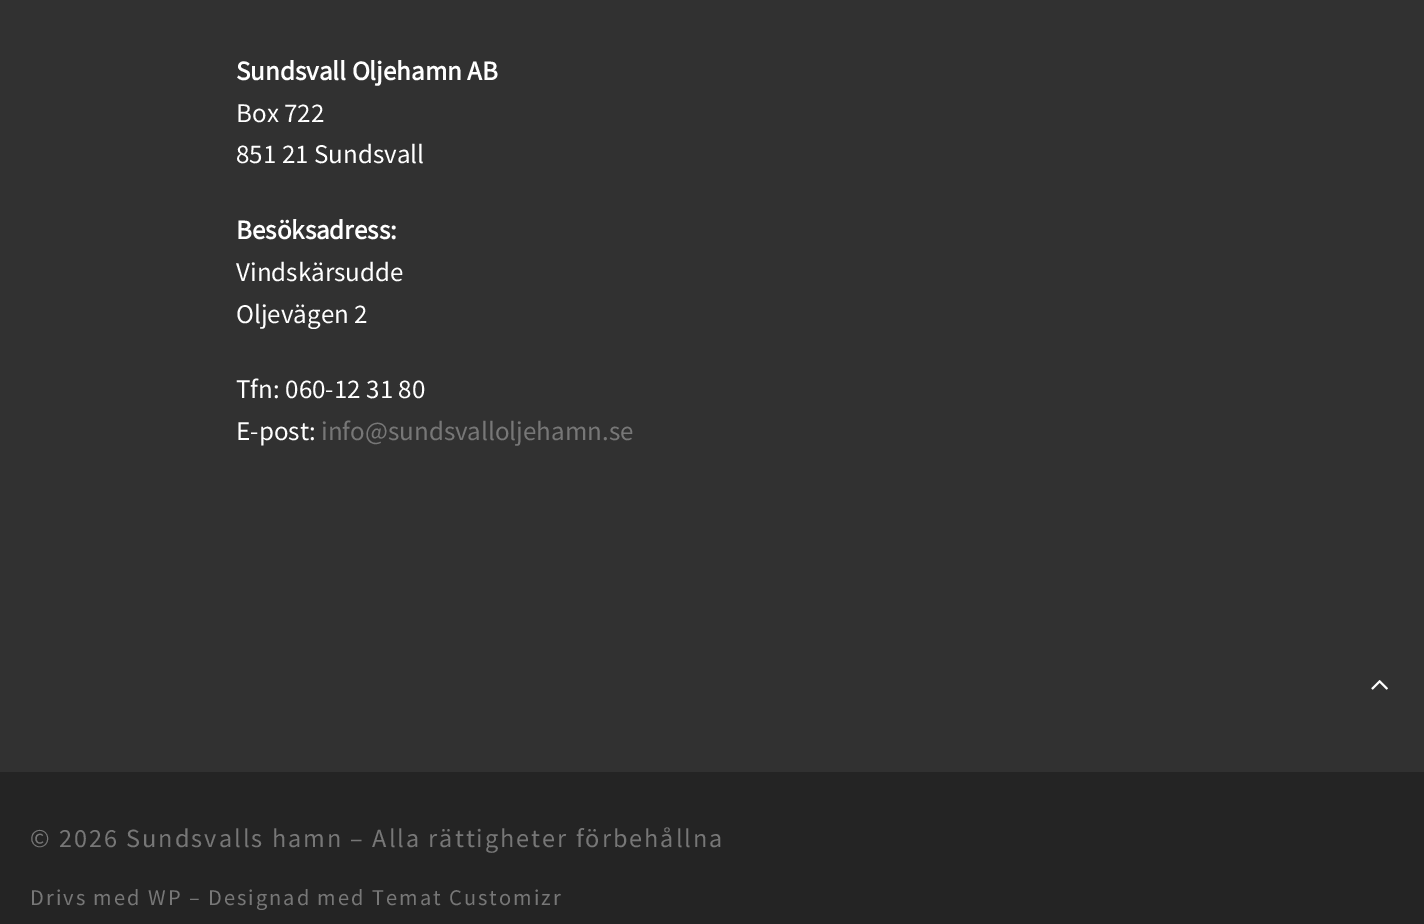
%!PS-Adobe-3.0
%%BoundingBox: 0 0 1424 924
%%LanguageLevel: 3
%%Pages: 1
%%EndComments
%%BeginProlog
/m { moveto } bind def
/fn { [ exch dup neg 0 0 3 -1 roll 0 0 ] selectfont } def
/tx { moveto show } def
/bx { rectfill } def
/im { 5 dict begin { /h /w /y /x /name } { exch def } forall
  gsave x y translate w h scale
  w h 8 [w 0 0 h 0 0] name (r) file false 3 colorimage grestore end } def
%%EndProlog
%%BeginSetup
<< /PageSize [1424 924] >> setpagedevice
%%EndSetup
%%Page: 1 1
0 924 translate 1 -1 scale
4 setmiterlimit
0.192 setgray
0 0 1424 924 bx
/SourceSansPro-Bold 27 fn
1 setgray
(Sundsvall Oljehamn AB) 236 80 tx
/SourceSansPro-Regular 27 fn
(Box 722) 236 122 tx
(851 21 Sundsvall) 236 163 tx
/SourceSansPro-Bold 27 fn
(Besöksadress:) 236 239 tx
/SourceSansPro-Regular 27 fn
(Vindskärsudde) 236 281 tx
(Oljevägen 2) 236 323 tx
(Tfn: 060-12 31 80) 236 398 tx
(E-post:) 236 440 tx
0.467 setgray
(info@sundsvalloljehamn.se) 321 440 tx
0.141 setgray
0 772 1424 152 bx
/SourceSansPro-Regular 26.25 fn
0.467 setgray
30 847 m 2 0 (© 2026 Sundsvalls hamn – Alla rättigheter förbehållna) ashow
/SourceSansPro-Regular 22.4 fn
30 905 m 2 0 (Drivs med WP – Designad med Temat Customizr) ashow
(image0.raw) 1371 680 17 10 im
showpage
%%EOF
